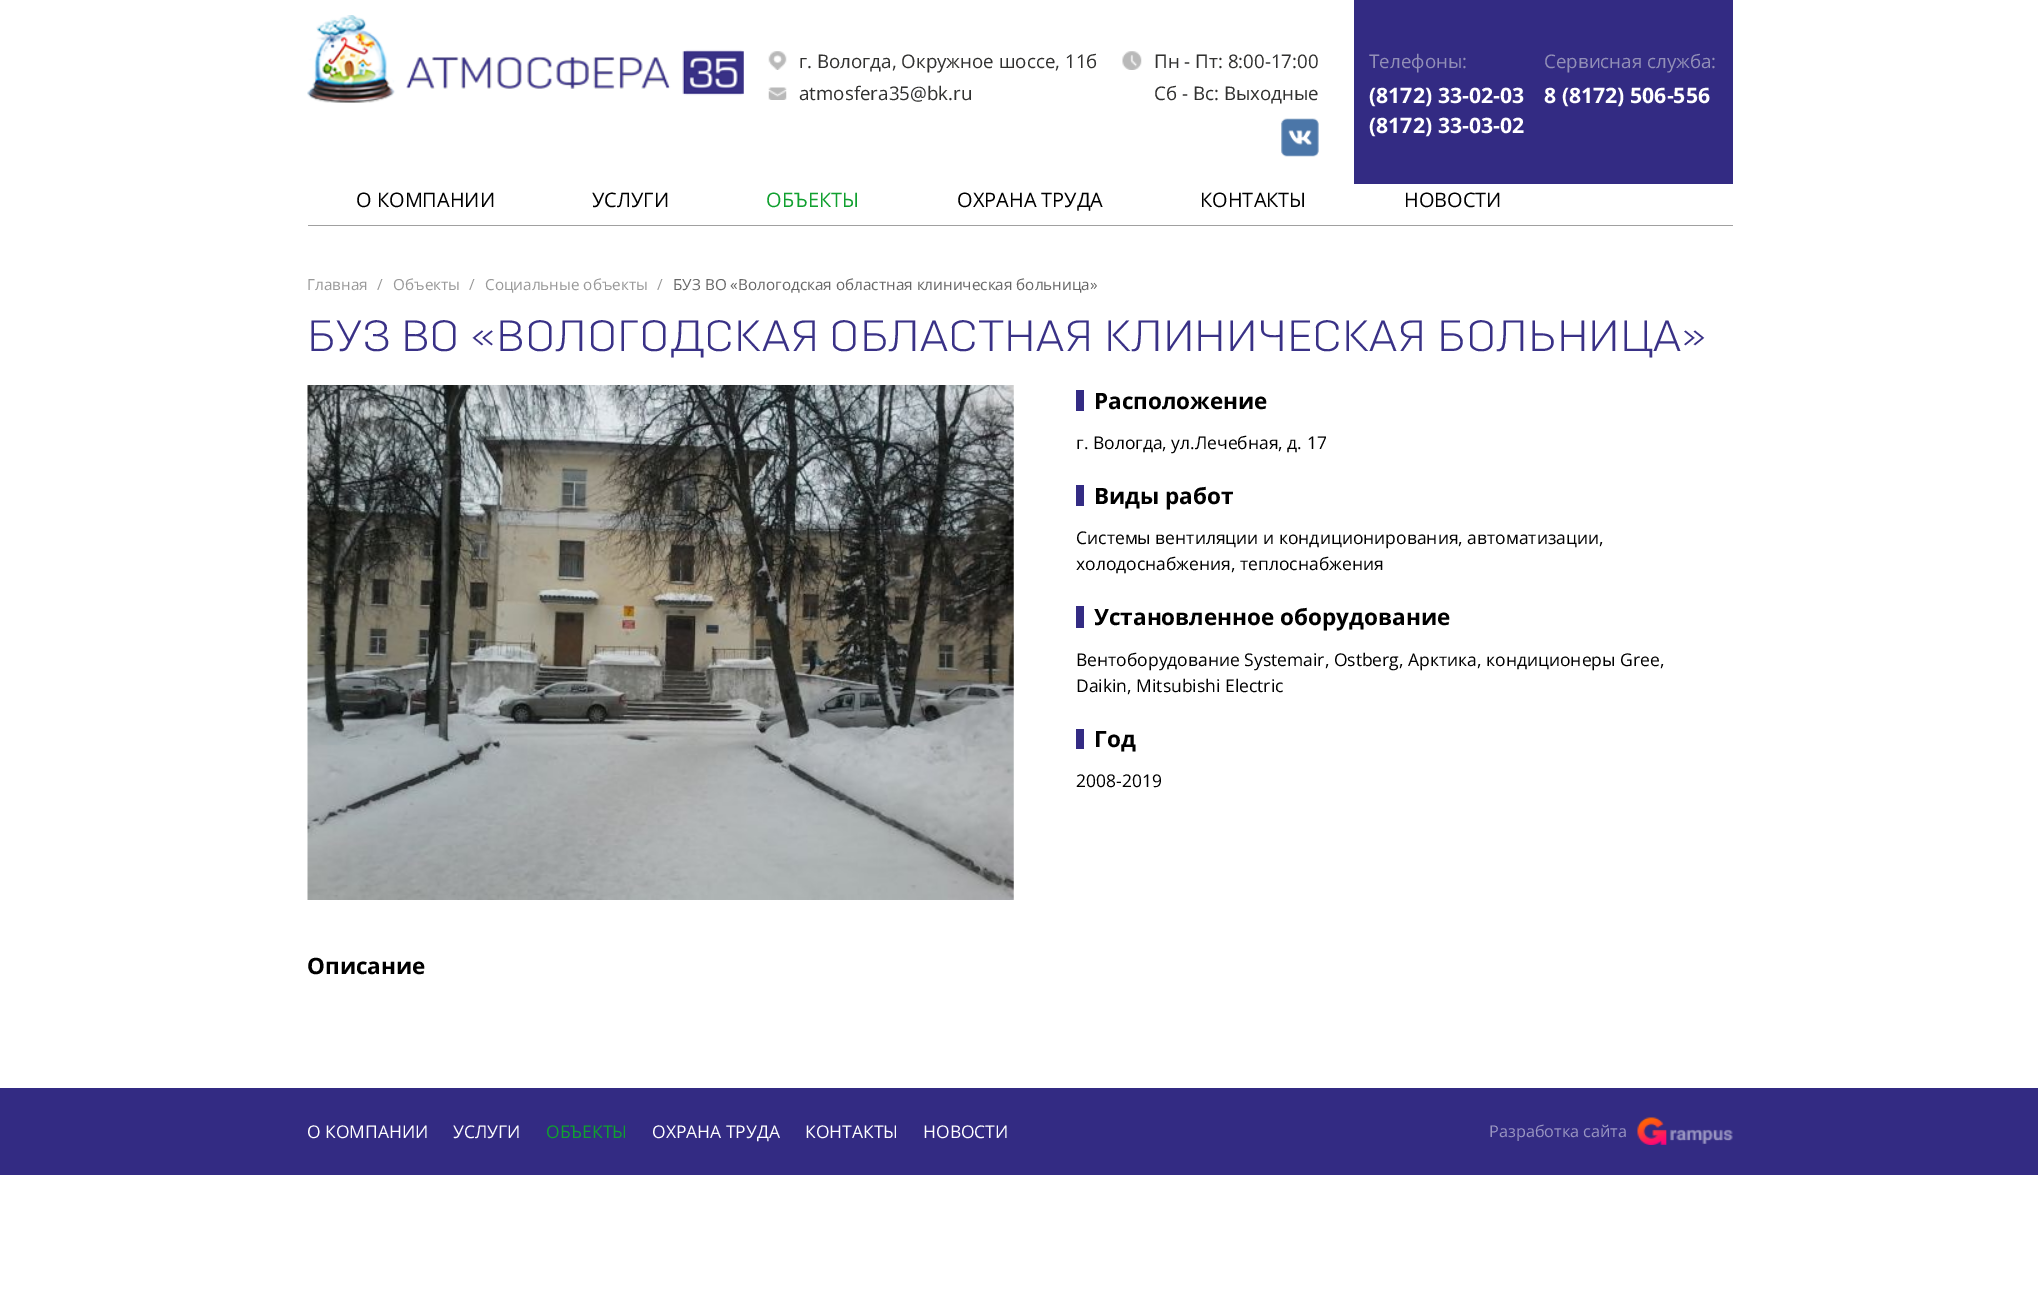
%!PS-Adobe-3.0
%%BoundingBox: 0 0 2038 1296
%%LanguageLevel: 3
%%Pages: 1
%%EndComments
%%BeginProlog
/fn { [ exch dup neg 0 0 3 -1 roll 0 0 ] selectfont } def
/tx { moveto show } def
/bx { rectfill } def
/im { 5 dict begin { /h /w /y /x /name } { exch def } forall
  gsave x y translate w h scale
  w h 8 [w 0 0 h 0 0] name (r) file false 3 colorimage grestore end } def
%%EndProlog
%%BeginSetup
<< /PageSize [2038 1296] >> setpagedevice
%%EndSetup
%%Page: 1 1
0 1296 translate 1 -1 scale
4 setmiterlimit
1 setgray
0 0 2038 1296 bx
(image0.raw) 307 15 437 88 im
(image1.raw) 768 51 19 19 im
/OpenSans-Regular 18.75 fn
0.192 0.192 0.188 setrgbcolor
(г. Вологда, Окружное шоссе, 11б) 799 68 tx
(image2.raw) 768 87 19 13 im
(atmosfera35@bk.ru) 799 100 tx
(image3.raw) 1122 51 20 19 im
(Пн - Пт: 8:00-17:00) 1154 68 tx
(Сб - Вс: Выходные) 1154 100 tx
(image4.raw) 1281 118 38 39 im
0.2 0.169 0.514 setrgbcolor
1354 0 379 184 bx
0.573 0.561 0.718 setrgbcolor
(Телефоны:) 1369 68 tx
/OpenSans-Bold 21.25 fn
1 setgray
(\(8172\) 33-02-03) 1369 103 tx
(\(8172\) 33-03-02) 1369 133 tx
/OpenSans-Regular 18.75 fn
0.573 0.561 0.718 setrgbcolor
(Сервисная служба:) 1544 68 tx
/OpenSans-Bold 21.25 fn
1 setgray
(8 \(8172\) 506-556) 1544 103 tx
0.627 setgray
308 225 1425 1 bx
/OpenSans-Regular 20 fn
0 setgray
(О КОМПАНИИ) 356 207 tx
(УСЛУГИ) 592 207 tx
0.063 0.627 0.184 setrgbcolor
(ОБЪЕКТЫ) 766 207 tx
0 setgray
(ОХРАНА ТРУДА) 957 207 tx
(КОНТАКТЫ) 1200 207 tx
(НОВОСТИ) 1404 207 tx
/OpenSans-Regular 15.3 fn
0.6 setgray
(Главная) 307 290 tx
(/) 377 290 tx
(Объекты) 393 290 tx
(/) 469 290 tx
(Социальные объекты) 485 290 tx
(/) 657 290 tx
0.4 setgray
(БУЗ ВО «Вологодская областная клиническая больница») 673 290 tx
/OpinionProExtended-Light 43.75 fn
0.224 0.192 0.525 setrgbcolor
(БУЗ ВО «ВОЛОГОДСКАЯ ОБЛАСТНАЯ КЛИНИЧЕСКАЯ БОЛЬНИЦА») 307 351 tx
(image5.raw) 307 385 707 515 im
0.2 0.169 0.514 setrgbcolor
1076 390 8 21 bx
/OpenSans-Bold 22.5 fn
0 setgray
(Расположение) 1094 409 tx
/OpenSans-Regular 17.5 fn
(г. Вологда, ул.Лечебная, д. 17) 1076 449 tx
0.2 0.169 0.514 setrgbcolor
1076 485 8 21 bx
/OpenSans-Bold 22.5 fn
0 setgray
(Виды работ) 1094 504 tx
/OpenSans-Regular 17.5 fn
(Системы вентиляции и кондиционирования, автоматизации,) 1076 544 tx
(холодоснабжения, теплоснабжения) 1076 570 tx
0.2 0.169 0.514 setrgbcolor
1076 606 8 22 bx
/OpenSans-Bold 22.5 fn
0 setgray
(Установленное оборудование) 1094 625 tx
/OpenSans-Regular 17.5 fn
(Вентоборудование Systemair, Ostberg, Арктика, кондиционеры Gree,) 1076 666 tx
(Daikin, Mitsubishi Electric) 1076 692 tx
0.2 0.169 0.514 setrgbcolor
1076 729 8 20 bx
/OpenSans-Bold 22.5 fn
0 setgray
(Год) 1094 747 tx
/OpenSans-Regular 17.5 fn
(2008-2019) 1076 787 tx
/OpenSans-Bold 22.5 fn
(Описание) 307 974 tx
0.2 0.169 0.514 setrgbcolor
0 1088 2038 87 bx
/OpenSans-Regular 17.5 fn
1 setgray
(О КОМПАНИИ) 307 1138 tx
(УСЛУГИ) 453 1138 tx
0.063 0.627 0.184 setrgbcolor
(ОБЪЕКТЫ) 546 1138 tx
1 setgray
(ОХРАНА ТРУДА) 652 1138 tx
(КОНТАКТЫ) 805 1138 tx
(НОВОСТИ) 923 1138 tx
/OpenSans-Regular 16.25 fn
0.6 0.584 0.757 setrgbcolor
(Разработка сайта) 1489 1137 tx
(image6.raw) 1637 1117 96 28 im
showpage
%%EOF
